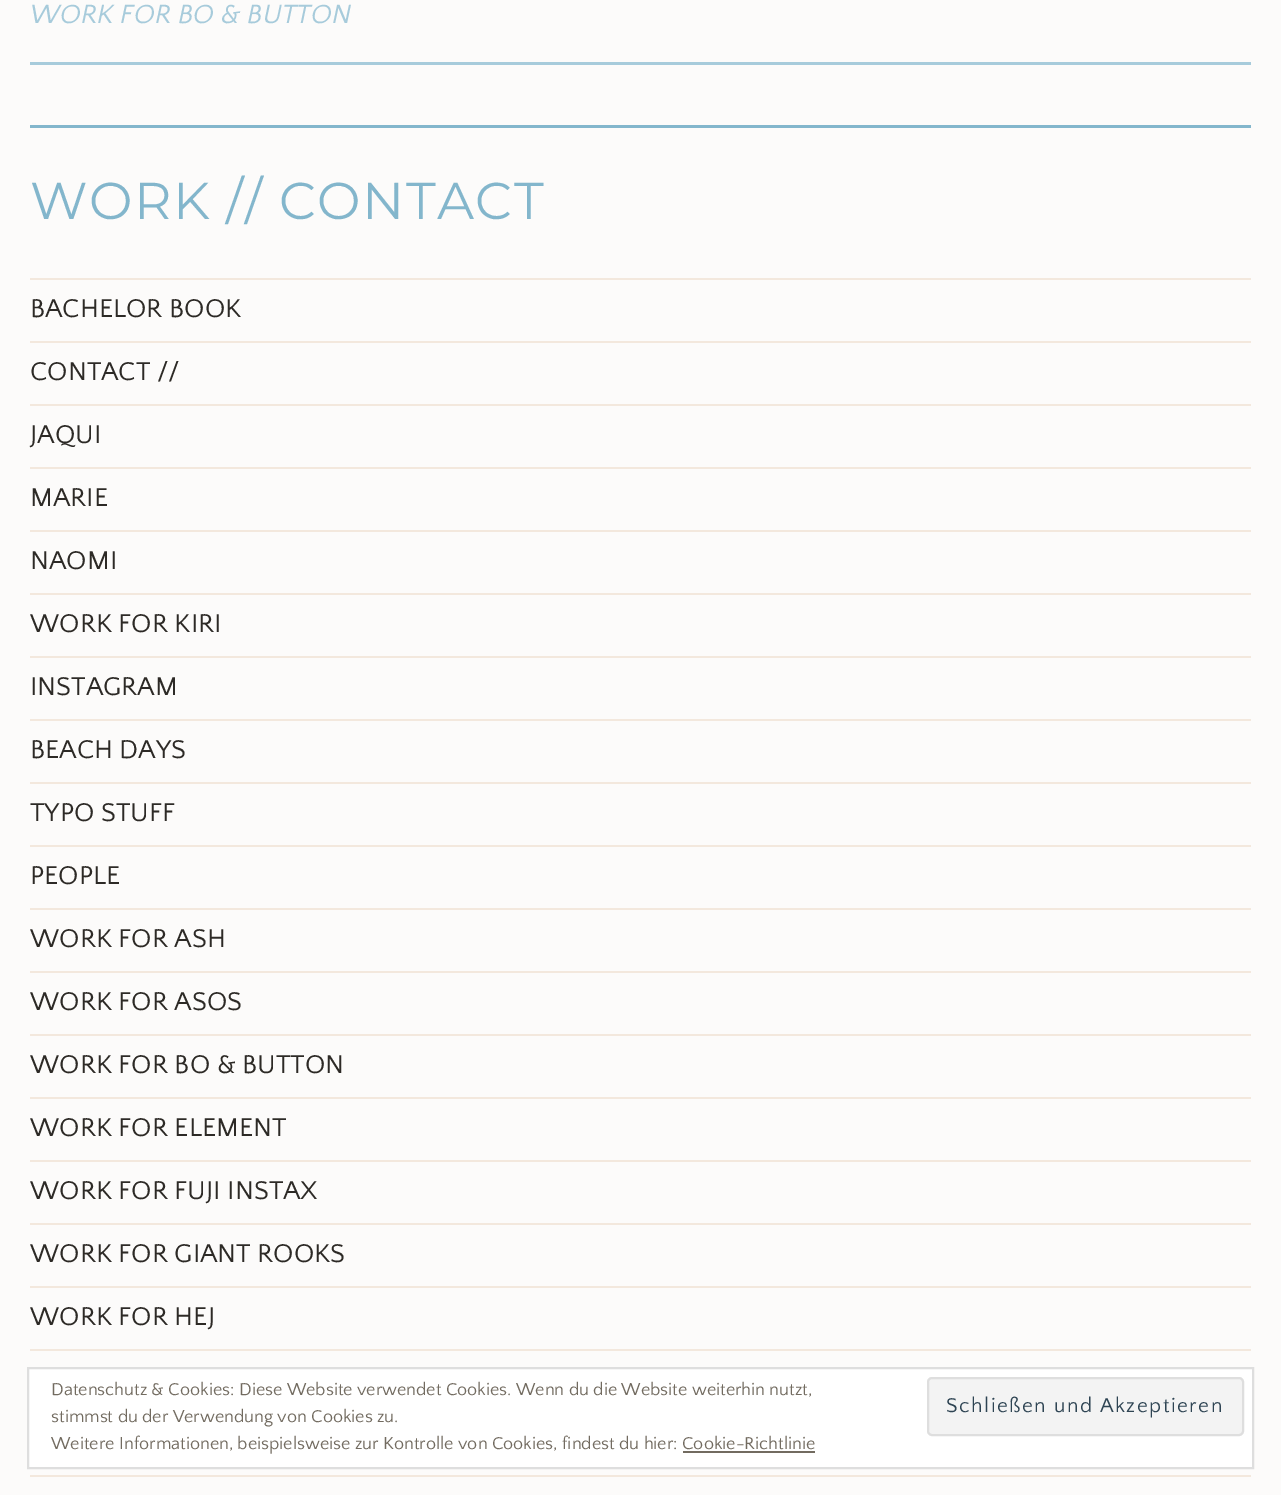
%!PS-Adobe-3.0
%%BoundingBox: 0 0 1281 1495
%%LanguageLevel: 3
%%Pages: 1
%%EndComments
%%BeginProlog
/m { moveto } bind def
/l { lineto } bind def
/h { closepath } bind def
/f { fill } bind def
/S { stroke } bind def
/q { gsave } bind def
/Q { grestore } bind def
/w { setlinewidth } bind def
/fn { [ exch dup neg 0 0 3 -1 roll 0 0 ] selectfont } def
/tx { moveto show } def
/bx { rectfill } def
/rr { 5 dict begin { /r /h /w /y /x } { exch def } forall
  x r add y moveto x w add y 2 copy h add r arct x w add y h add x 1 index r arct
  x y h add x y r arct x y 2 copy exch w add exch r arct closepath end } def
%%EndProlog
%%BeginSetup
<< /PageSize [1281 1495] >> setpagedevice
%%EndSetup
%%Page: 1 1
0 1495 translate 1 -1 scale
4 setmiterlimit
0.988 0.984 0.98 setrgbcolor
0 0 1281 1495 bx
0.655 0.796 0.859 setrgbcolor
30 62 1221 3 bx
/QuattrocentoSans-Italic 27.6 fn
(WORK FOR BO & BUTTON) 30 23 tx
0.514 0.714 0.8 setrgbcolor
30 125 1221 3 bx
/Montserrat-Thin 51.75 fn
30 219 m 1.5 0 (WORK // CONTACT) ashow
0.953 0.91 0.867 setrgbcolor
30 278 1221 2 bx
/QuattrocentoSans-Regular 27 fn
0.176 0.165 0.149 setrgbcolor
(BACHELOR BOOK) 30 317 tx
0.953 0.91 0.867 setrgbcolor
30 341 1221 2 bx
0.176 0.165 0.149 setrgbcolor
(CONTACT //) 30 380 tx
0.953 0.91 0.867 setrgbcolor
30 404 1221 2 bx
0.176 0.165 0.149 setrgbcolor
(JAQUI) 30 443 tx
0.953 0.91 0.867 setrgbcolor
30 467 1221 2 bx
0.176 0.165 0.149 setrgbcolor
(MARIE) 30 506 tx
0.953 0.91 0.867 setrgbcolor
30 530 1221 2 bx
0.176 0.165 0.149 setrgbcolor
(NAOMI) 30 569 tx
0.953 0.91 0.867 setrgbcolor
30 593 1221 2 bx
0.176 0.165 0.149 setrgbcolor
(WORK FOR KIRI) 30 632 tx
0.953 0.91 0.867 setrgbcolor
30 656 1221 2 bx
0.176 0.165 0.149 setrgbcolor
(INSTAGRAM) 30 695 tx
0.953 0.91 0.867 setrgbcolor
30 719 1221 2 bx
0.176 0.165 0.149 setrgbcolor
(BEACH DAYS) 30 758 tx
0.953 0.91 0.867 setrgbcolor
30 782 1221 2 bx
0.176 0.165 0.149 setrgbcolor
(TYPO STUFF) 30 821 tx
0.953 0.91 0.867 setrgbcolor
30 845 1221 2 bx
0.176 0.165 0.149 setrgbcolor
(PEOPLE) 30 884 tx
0.953 0.91 0.867 setrgbcolor
30 908 1221 2 bx
0.176 0.165 0.149 setrgbcolor
(WORK FOR ASH) 30 947 tx
0.953 0.91 0.867 setrgbcolor
30 971 1221 2 bx
0.176 0.165 0.149 setrgbcolor
(WORK FOR ASOS) 30 1010 tx
0.953 0.91 0.867 setrgbcolor
30 1034 1221 2 bx
0.176 0.165 0.149 setrgbcolor
(WORK FOR BO & BUTTON) 30 1073 tx
0.953 0.91 0.867 setrgbcolor
30 1097 1221 2 bx
0.176 0.165 0.149 setrgbcolor
(WORK FOR ELEMENT) 30 1136 tx
0.953 0.91 0.867 setrgbcolor
30 1160 1221 2 bx
0.176 0.165 0.149 setrgbcolor
(WORK FOR FUJI INSTAX) 30 1199 tx
0.953 0.91 0.867 setrgbcolor
30 1223 1221 2 bx
0.176 0.165 0.149 setrgbcolor
(WORK FOR GIANT ROOKS) 30 1262 tx
0.953 0.91 0.867 setrgbcolor
30 1286 1221 2 bx
0.176 0.165 0.149 setrgbcolor
(WORK FOR HEJ) 30 1325 tx
0.953 0.91 0.867 setrgbcolor
30 1349 1221 2 bx
30 1475 1221 2 bx
1 setgray
28 1368 m 1253 1368 l 1253 1468 l 28 1468 l h q f Q
0.871 setgray
2 w
S
/QuattrocentoSans-Regular 18 fn
0.447 0.42 0.376 setrgbcolor
(Datenschutz & Cookies: Diese Website verwendet Cookies. Wenn du die Website weiterhin nutzt,) 51 1395 tx
(stimmst du der Verwendung von Cookies zu.) 51 1422 tx
0.953 setgray
928 1378 315 57 4 rr q f Q
0.871 setgray
S
/QuattrocentoSans-Regular 21 fn
0.18 0.267 0.325 setrgbcolor
946 1412 m 1.5 0 (Schließen und Akzeptieren) ashow
/QuattrocentoSans-Regular 18 fn
0.447 0.42 0.376 setrgbcolor
(Weitere Informationen, beispielsweise zur Kontrolle von Cookies, findest du hier: Cookie-Richtlinie) 51 1449 tx
683 1451 132 2 bx
showpage
%%EOF
